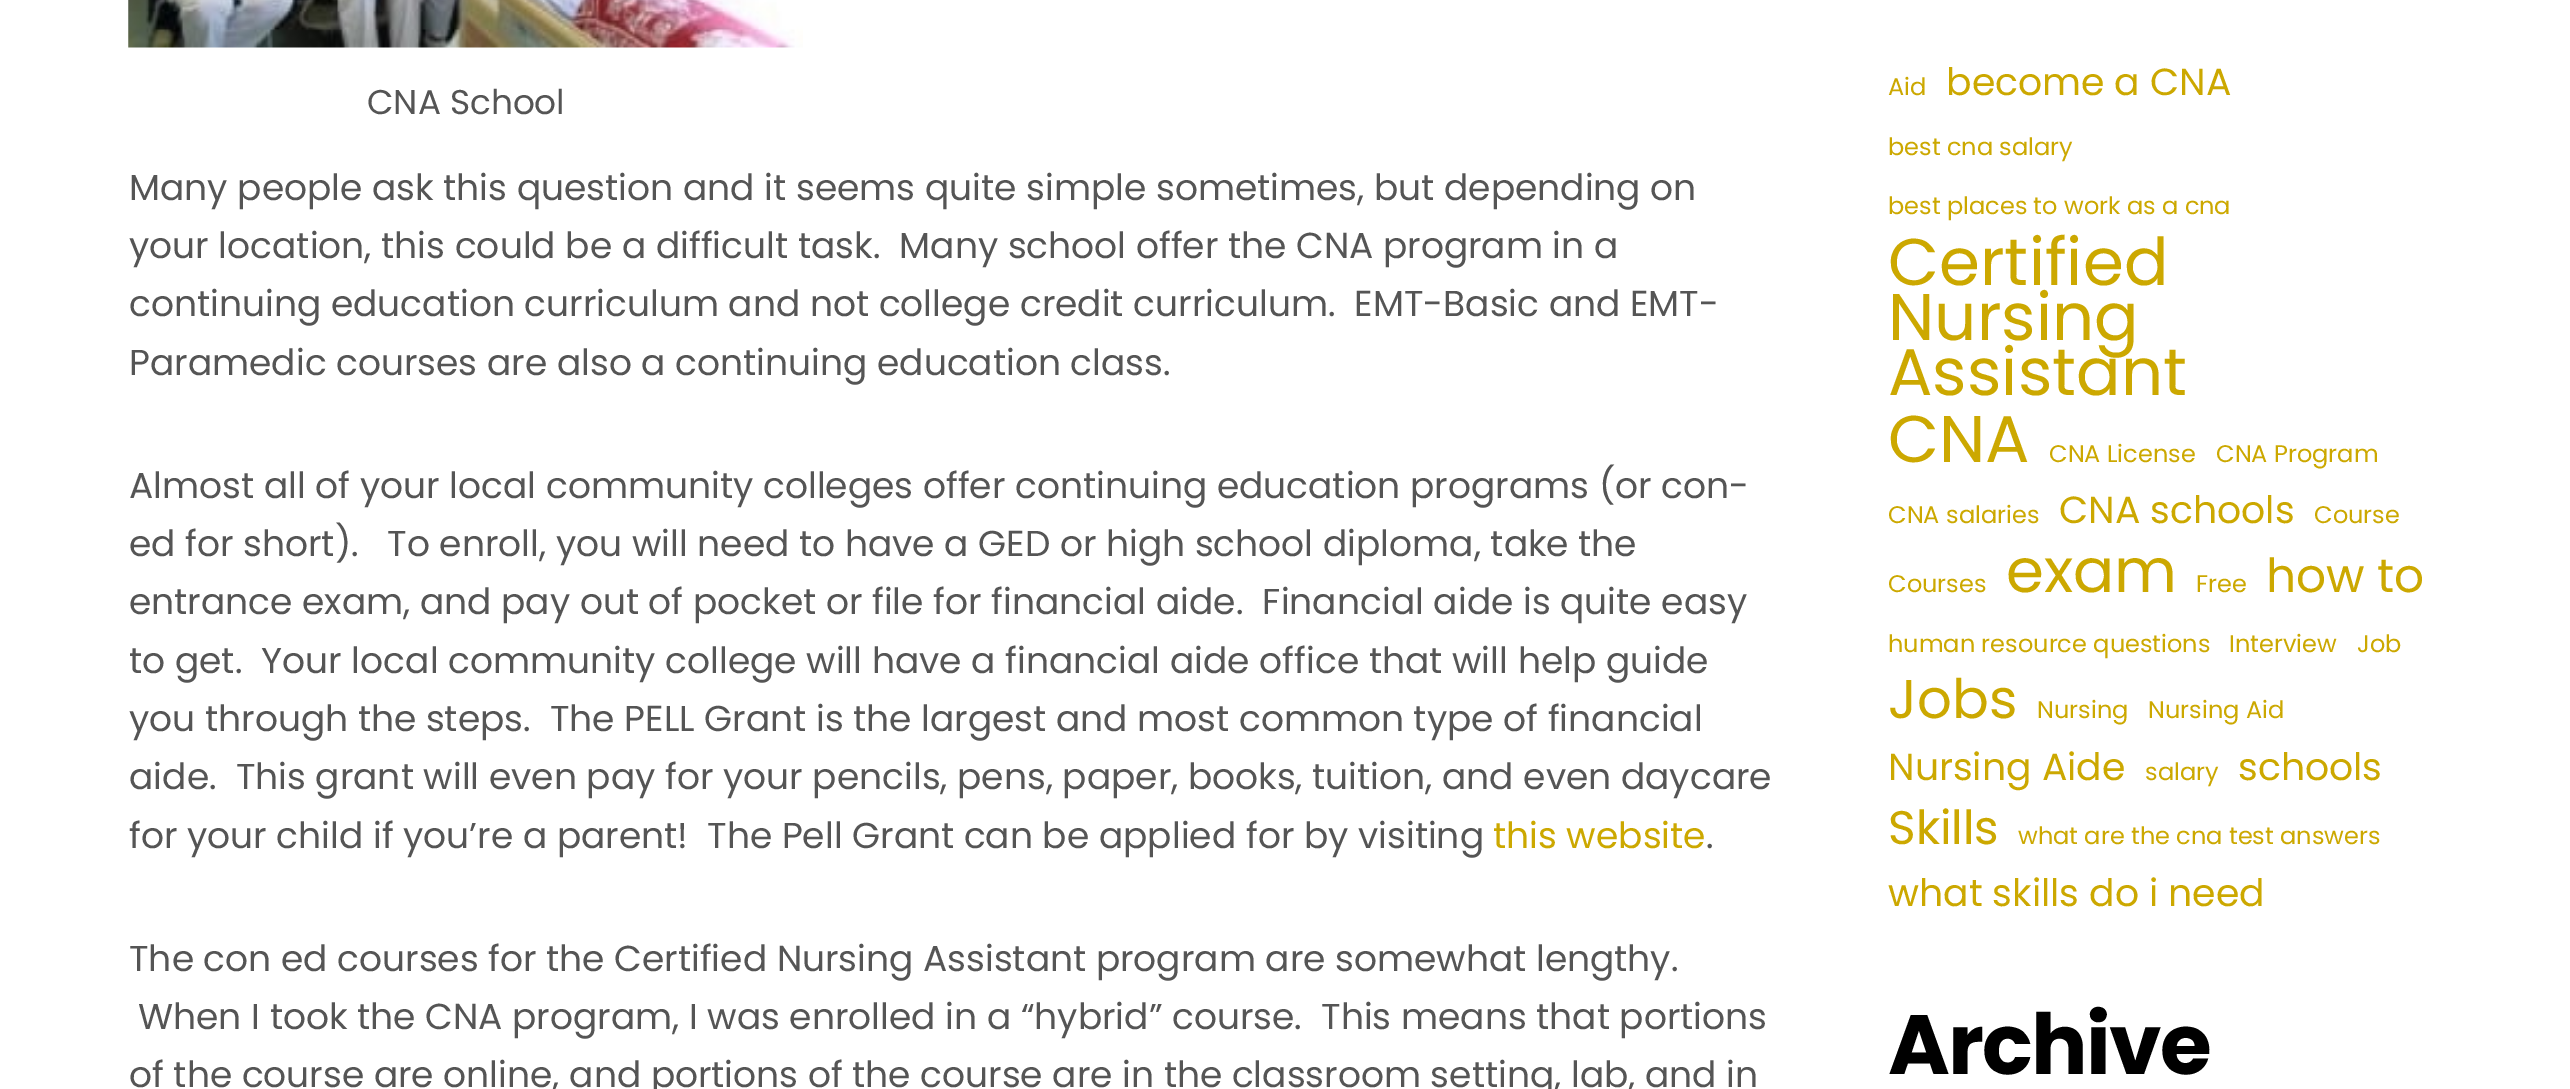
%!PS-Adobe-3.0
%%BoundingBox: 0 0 2570 1089
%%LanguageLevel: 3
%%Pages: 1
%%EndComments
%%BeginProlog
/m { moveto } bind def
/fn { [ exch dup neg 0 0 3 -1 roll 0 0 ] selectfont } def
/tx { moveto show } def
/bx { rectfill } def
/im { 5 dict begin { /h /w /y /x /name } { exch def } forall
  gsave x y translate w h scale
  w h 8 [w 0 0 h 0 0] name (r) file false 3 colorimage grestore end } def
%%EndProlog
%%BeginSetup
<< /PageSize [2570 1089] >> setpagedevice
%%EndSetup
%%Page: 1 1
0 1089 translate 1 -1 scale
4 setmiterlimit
1 setgray
0 0 2570 1089 bx
(image0.raw) 128 0 675 48 im
/Poppins-Regular 34.25 fn
0.333 setgray
(CNA School) 367 114 tx
/Poppins-Regular 36 fn
(Many people ask this question and it seems quite simple sometimes, but depending on) 129 200 tx
(your location, this could be a difficult task.  Many school offer the CNA program in a) 129 258 tx
(continuing education curriculum and not college credit curriculum.  EMT-Basic and EMT-) 129 316 tx
(Paramedic courses are also a continuing education class.) 129 375 tx
(Almost all of your local community colleges offer continuing education programs \(or con-) 129 498 tx
(ed for short\).   To enroll, you will need to have a GED or high school diploma, take the) 129 556 tx
(entrance exam, and pay out of pocket or file for financial aide.  Financial aide is quite easy) 129 614 tx
(to get.  Your local community college will have a financial aide office that will help guide) 129 673 tx
(you through the steps.  The PELL Grant is the largest and most common type of financial) 129 731 tx
(aide.  This grant will even pay for your pencils, pens, paper, books, tuition, and even daycare) 129 789 tx
(for your child if you’re a parent!  The Pell Grant can be applied for by visiting) 129 848 tx
0.8 0.659 0 setrgbcolor
(this website) 1493 848 tx
0.333 setgray
(.) 1706 848 tx
(The con ed courses for the Certified Nursing Assistant program are somewhat lengthy.) 129 971 tx
(When I took the CNA program, I was enrolled in a “hybrid” course.  This means that portions) 138 1029 tx
(of the course are online, and portions of the course are in the classroom setting, lab, and in) 129 1087 tx
/Poppins-Regular 24 fn
0.8 0.659 0 setrgbcolor
(Aid) 1888 95 tx
/Poppins-Regular 37.75 fn
(become a CNA) 1946 95 tx
/Poppins-Regular 24 fn
(best cna salary) 1888 155 tx
(best places to work as a cna) 1888 214 tx
/Poppins-Regular 66 fn
(Certified) 1888 285 tx
(Nursing) 1888 340 tx
(Assistant) 1888 395 tx
(CNA) 1888 462 tx
/Poppins-Regular 24 fn
(CNA License) 2049 462 tx
(CNA Program) 2216 462 tx
(CNA salaries) 1888 523 tx
/Poppins-Regular 37.75 fn
(CNA schools) 2059 523 tx
/Poppins-Regular 24 fn
(Course) 2314 523 tx
(Courses) 1888 592 tx
/Poppins-Regular 61 fn
(exam) 2006 592 tx
/Poppins-Regular 24 fn
(Free) 2196 592 tx
/Poppins-Regular 47 fn
(how to) 2266 592 tx
/Poppins-Regular 24 fn
(human resource questions) 1888 652 tx
(Interview) 2229 652 tx
(Job) 2357 652 tx
/Poppins-Regular 54.5 fn
(Jobs) 1888 718 tx
/Poppins-Regular 24 fn
(Nursing) 2037 718 tx
(Nursing Aid) 2148 718 tx
/Poppins-Regular 37.75 fn
(Nursing Aide) 1888 780 tx
/Poppins-Regular 24 fn
(salary) 2145 780 tx
/Poppins-Regular 37.75 fn
(schools) 2238 780 tx
/Poppins-Regular 47 fn
(Skills) 1888 844 tx
/Poppins-Regular 24 fn
(what are the cna test answers) 2018 844 tx
/Poppins-Regular 37.75 fn
(what skills do i need) 1888 906 tx
/Poppins-Bold 84 fn
0 setgray
1888 1074 m -1.75 0 (Archive) ashow
showpage
%%EOF
